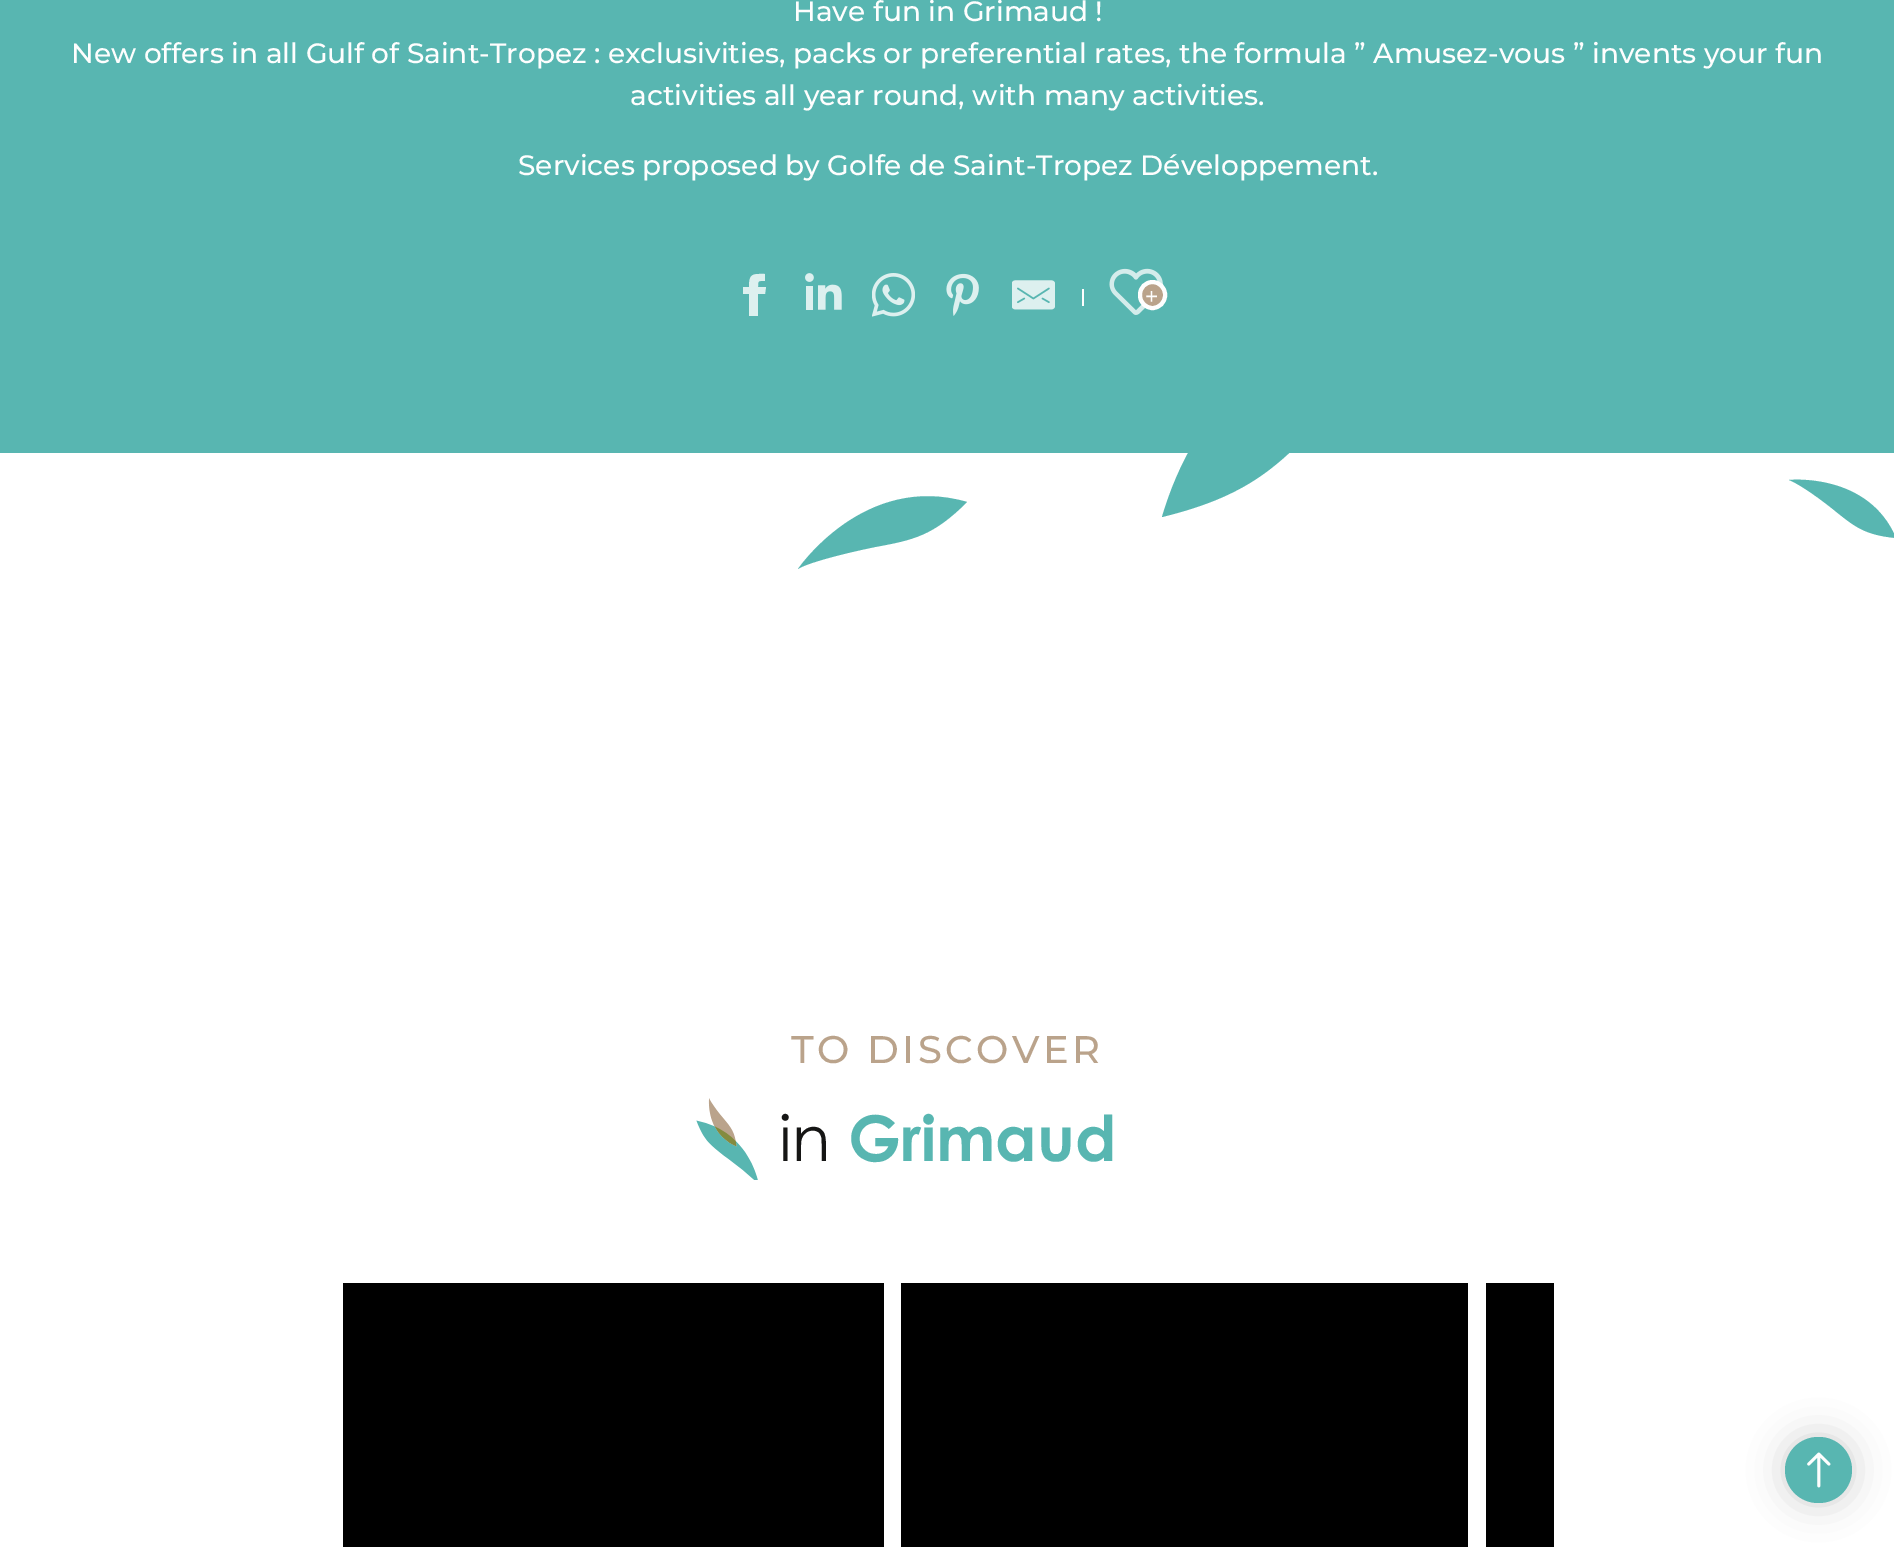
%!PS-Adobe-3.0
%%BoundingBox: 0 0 1894 1547
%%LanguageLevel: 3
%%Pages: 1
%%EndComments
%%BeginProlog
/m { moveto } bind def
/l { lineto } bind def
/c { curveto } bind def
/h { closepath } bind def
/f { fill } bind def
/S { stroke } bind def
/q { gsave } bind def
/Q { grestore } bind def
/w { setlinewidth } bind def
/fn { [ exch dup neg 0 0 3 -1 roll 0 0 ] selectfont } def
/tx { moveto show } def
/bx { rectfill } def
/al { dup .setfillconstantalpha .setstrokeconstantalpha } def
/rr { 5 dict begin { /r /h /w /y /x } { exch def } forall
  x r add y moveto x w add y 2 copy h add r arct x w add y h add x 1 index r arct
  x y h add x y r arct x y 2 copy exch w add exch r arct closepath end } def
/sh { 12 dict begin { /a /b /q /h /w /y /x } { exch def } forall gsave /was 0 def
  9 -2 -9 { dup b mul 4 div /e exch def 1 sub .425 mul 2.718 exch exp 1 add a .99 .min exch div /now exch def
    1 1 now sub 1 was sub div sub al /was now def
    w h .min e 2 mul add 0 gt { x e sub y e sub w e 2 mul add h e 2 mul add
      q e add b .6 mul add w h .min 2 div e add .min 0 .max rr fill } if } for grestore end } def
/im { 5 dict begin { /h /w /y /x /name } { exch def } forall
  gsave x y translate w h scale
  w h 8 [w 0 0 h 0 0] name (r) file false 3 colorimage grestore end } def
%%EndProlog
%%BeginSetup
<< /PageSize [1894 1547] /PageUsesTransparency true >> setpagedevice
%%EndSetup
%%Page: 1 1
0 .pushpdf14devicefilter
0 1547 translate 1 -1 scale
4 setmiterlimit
1 setgray
0 0 1894 1547 bx
0.345 0.714 0.694 setrgbcolor
1465 284 m 1465 284 1228 292 1162 517 c 1256 494 1284 461 1340 400 c 1398 337 1448 292 1465 284 c f
0 0 1894 453 bx
/Montserrat-Medium 28 fn
0.996 setgray
(Have fun in Grimaud !) 793 21 tx
(New offers in all Gulf of Saint-Tropez : exclusivities, packs or preferential rates, the formula ” Amusez-vous ” invents your fun) 71 63 tx
(activities all year round, with many activities.) 630 105 tx
(Services proposed by Golfe de Saint-Tropez Développement.) 518 175 tx
0.867 0.941 0.937 setrgbcolor
766 287 m 758 287 l 758 280 758 281 765 281 c 765 274 l 753 274 749 273 749 287 c 743 287 l 743 294 l 749 294 l 749 316 l 758 316 l 758 294 l 765 294 l h f
(image0.raw) 805 273 37 37 im
(image1.raw) 872 273 43 44 im
(image2.raw) 946 273 33 43 im
(image3.raw) 1012 280 43 30 im
0.996 setgray
1082 289 2 17 bx
(image4.raw) 1109 268 54 47 im
0.729 0.639 0.545 setrgbcolor
1140 282 25 26 12.5 rr q f Q
0.996 setgray
4 w
S
/LiberationSerif-Bold 23 fn
(+) 1145 304 tx
0.345 0.714 0.694 setrgbcolor
798 569 m 798 569 864 472 967 502 c 933 536 913 540 875 547 c 836 555 805 564 798 569 c f
1789 480 m 1789 480 1868 472 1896 538 c 1864 535 1854 526 1834 510 c 1813 493 1795 482 1789 480 c f
/Montserrat-Medium 38.5 fn
0.729 0.639 0.545 setrgbcolor
791 1063 m 3.5 0 (TO DISCOVER) ashow
(image5.raw) 696 1098 62 82 im
/CenturyGothic-Regular 63 fn
0.086 0.086 0.082 setrgbcolor
(in) 779 1161 tx
/CenturyGothic-Bold 63 fn
0.345 0.714 0.694 setrgbcolor
(Grimaud) 848 1161 tx
0 setgray
343 1283 541 264 bx
901 1283 567 264 bx
1486 1283 68 264 bx
0.086 0.086 0.082 setrgbcolor
1785 1437 67 66 33 17.5 0.2 sh
0.345 0.714 0.694 setrgbcolor
1785 1437 67 66 33 rr f
(image6.raw) 1807 1452 24 36 im
.poppdf14devicefilter showpage
%%EOF
